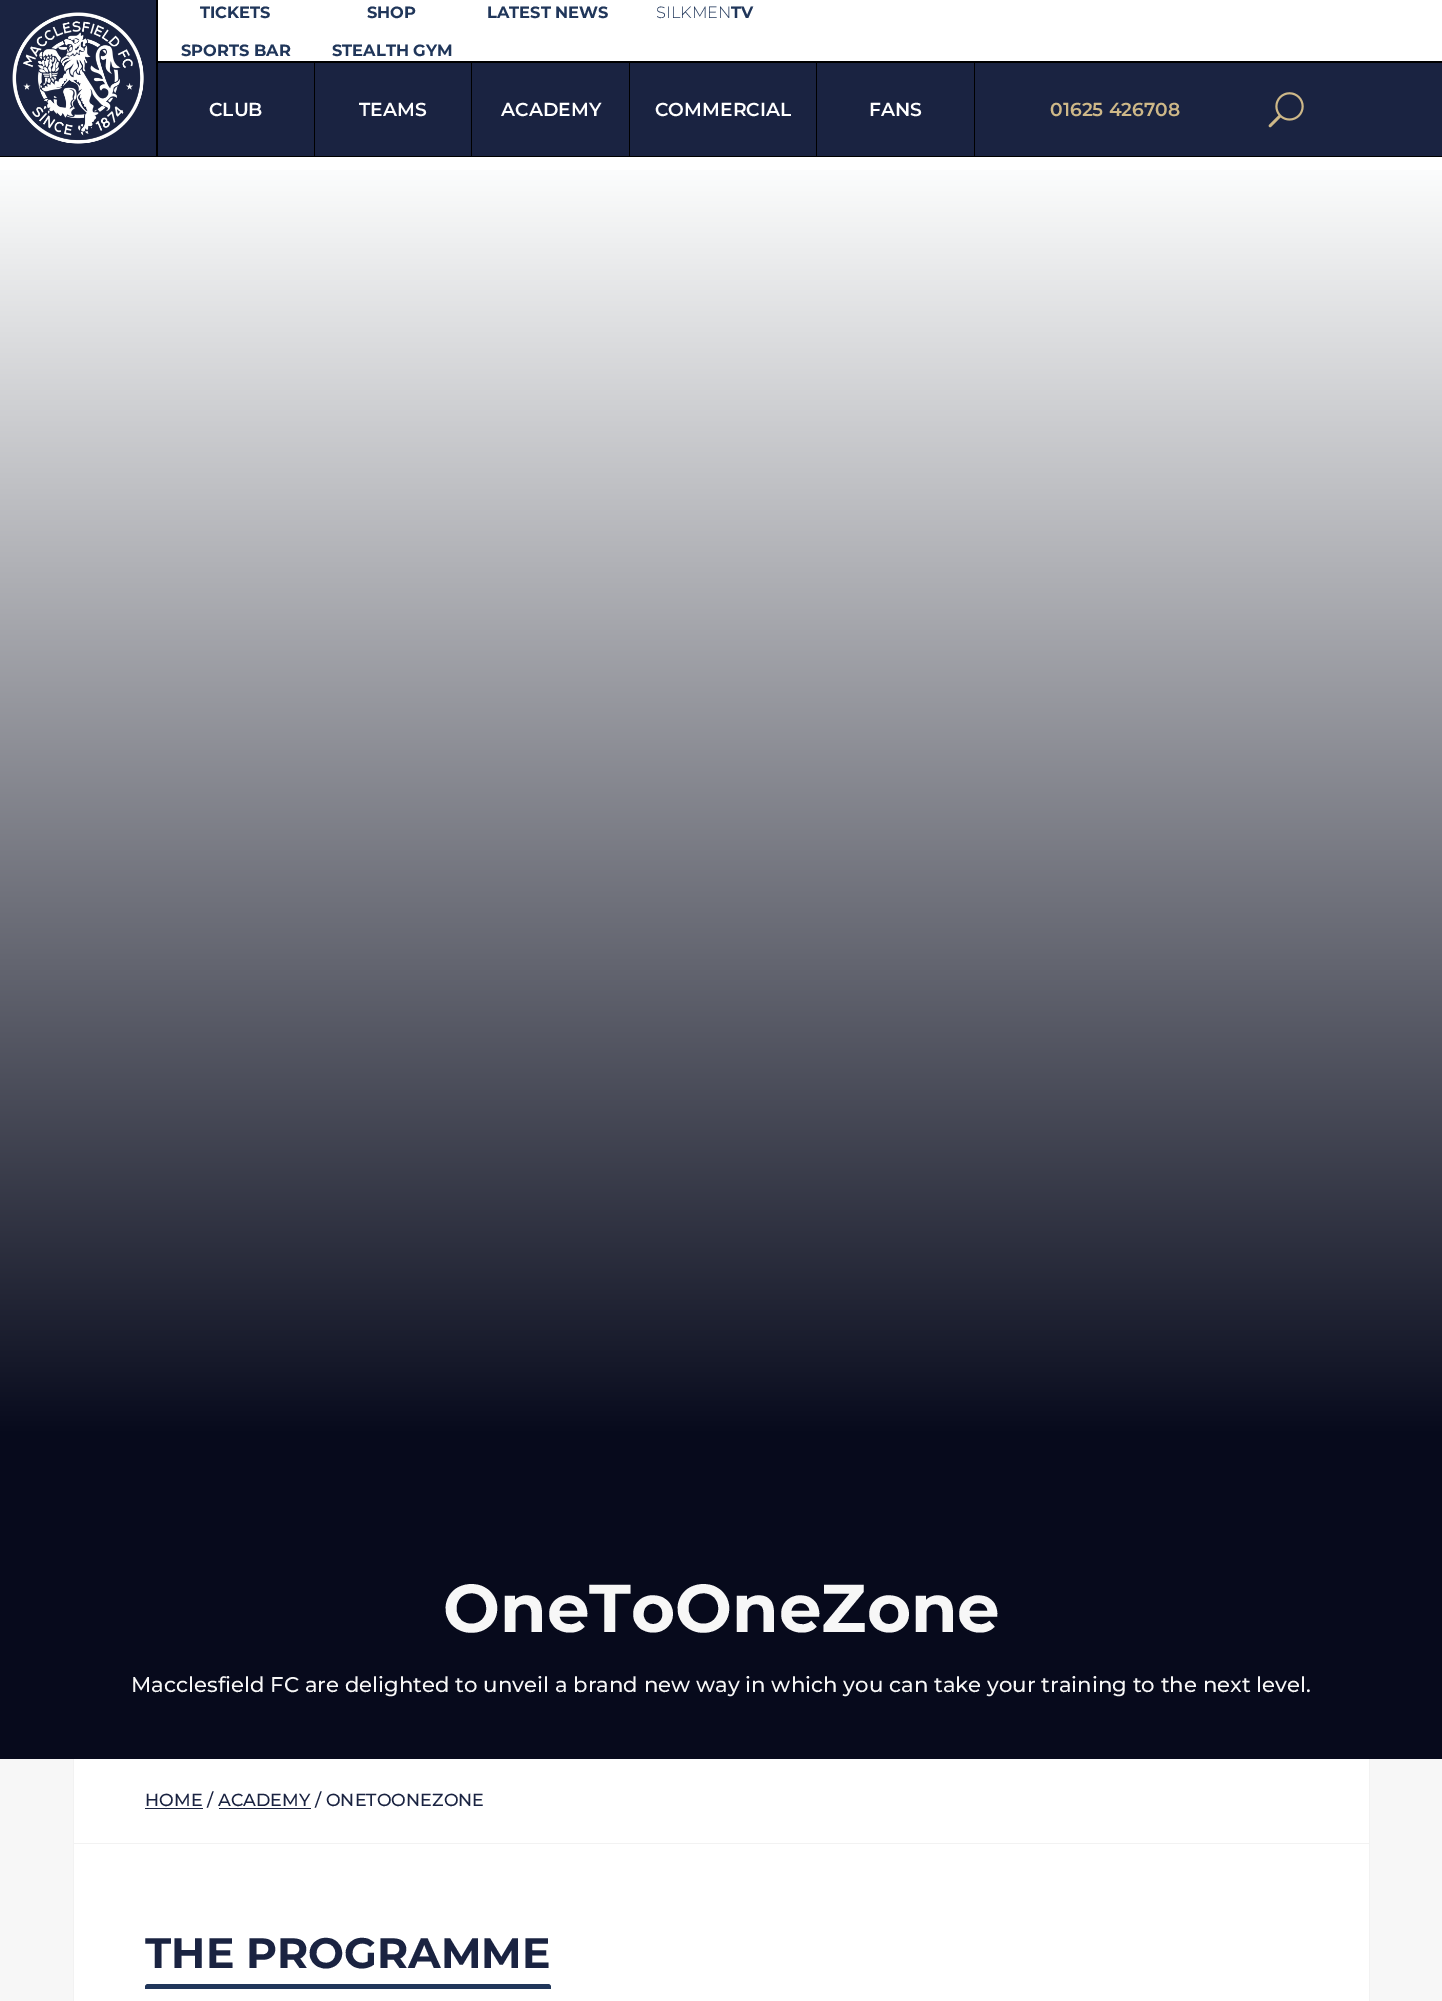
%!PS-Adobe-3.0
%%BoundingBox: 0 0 1442 2001
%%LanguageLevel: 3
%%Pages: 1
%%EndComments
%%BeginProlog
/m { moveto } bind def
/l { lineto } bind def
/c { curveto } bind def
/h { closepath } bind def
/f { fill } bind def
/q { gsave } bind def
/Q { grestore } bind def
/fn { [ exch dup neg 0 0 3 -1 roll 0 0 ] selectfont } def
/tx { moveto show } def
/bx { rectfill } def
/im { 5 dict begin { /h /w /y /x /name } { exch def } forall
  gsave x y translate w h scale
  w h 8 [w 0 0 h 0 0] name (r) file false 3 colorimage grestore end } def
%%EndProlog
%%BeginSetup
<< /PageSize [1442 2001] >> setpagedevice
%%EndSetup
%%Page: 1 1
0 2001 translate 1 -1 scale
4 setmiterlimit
1 setgray
0 0 1442 2001 bx
0 setgray
156 0 1286 156 bx
0 156 1442 1 bx
0.102 0.137 0.255 setrgbcolor
0 0 156 156 bx
(image0.raw) 12 12 132 132 im
1 setgray
158 0 1284 61 bx
/Montserrat-Thin 16.25 fn
0.125 0.212 0.353 setrgbcolor
(TICKETS) 200 18 tx
(SHOP) 367 18 tx
(LATEST NEWS) 487 18 tx
/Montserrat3-Thin 16.25 fn
(SILKMEN) 656 18 tx
/Montserrat-Thin 16.25 fn
(TV) 731 18 tx
(SPORTS BAR) 181 56 tx
(STEALTH GYM) 332 56 tx
0.102 0.137 0.255 setrgbcolor
158 63 1284 93 bx
0 setgray
314 63 1 93 bx
/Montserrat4-Thin 18.75 fn
1 setgray
(CLUB) 209 116 tx
0 setgray
471 63 1 93 bx
1 setgray
(TEAMS) 359 116 tx
0 setgray
629 63 1 93 bx
1 setgray
(ACADEMY) 501 116 tx
0 setgray
816 63 1 93 bx
1 setgray
(COMMERCIAL) 655 116 tx
0 setgray
974 63 1 93 bx
1 setgray
(FANS) 869 116 tx
0.808 0.722 0.533 setrgbcolor
(01625 426708) 1050 116 tx
(image1.raw) 1268 92 36 36 im
q 0 170 m 1442 170 l 1442 1759 l 0 1759 l h clip newpath
<< /ShadingType 2 /ColorSpace /DeviceRGB /Coords [721 157 721 1759] /Extend [true true] /Function << /FunctionType 3 /Domain [0 1] /Functions [<< /FunctionType 2 /Domain [0 1] /C0 [1 1 1] /C1 [0.027 0.039 0.11] /N 1 >> << /FunctionType 2 /Domain [0 1] /C0 [0.027 0.039 0.11] /C1 [0.027 0.039 0.11] /N 1 >>] /Bounds [0.8] /Encode [0 1 0 1] >> >> shfill Q
/Montserrat-Thin 67.5 fn
0.969 setgray
(OneToOneZone) 443 1632 tx
/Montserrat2-Thin 21.25 fn
(Macclesfield FC are delighted to unveil a brand new way in which you can take your training to the next level.) 131 1692 tx
0 1759 1442 242 bx
1 setgray
74 1759 1295 84 bx
0.949 setgray
1369 1759 1 242 bx
73 1759 1 242 bx
74 1843 1295 1 bx
/Montserrat2-Thin 17.5 fn
0.102 0.137 0.255 setrgbcolor
(HOME / ACADEMY / ONETOONEZONE) 145 1806 tx
145 1808 58 1 bx
219 1808 92 1 bx
1 setgray
74 1844 1295 157 bx
0.125 0.212 0.353 setrgbcolor
145 1986 406 3 bx
/Montserrat-Thin 42.5 fn
0.102 0.137 0.255 setrgbcolor
(THE PROGRAMME) 145 1968 tx
0.125 0.212 0.353 setrgbcolor
148 1984 m 548 1984 l 549.5 1984 551 1985.5 551 1987 c 551 1986 l 145 1986 l 145 1987 l 145 1985.5 146.5 1984 148 1984 c h f
showpage
%%EOF
